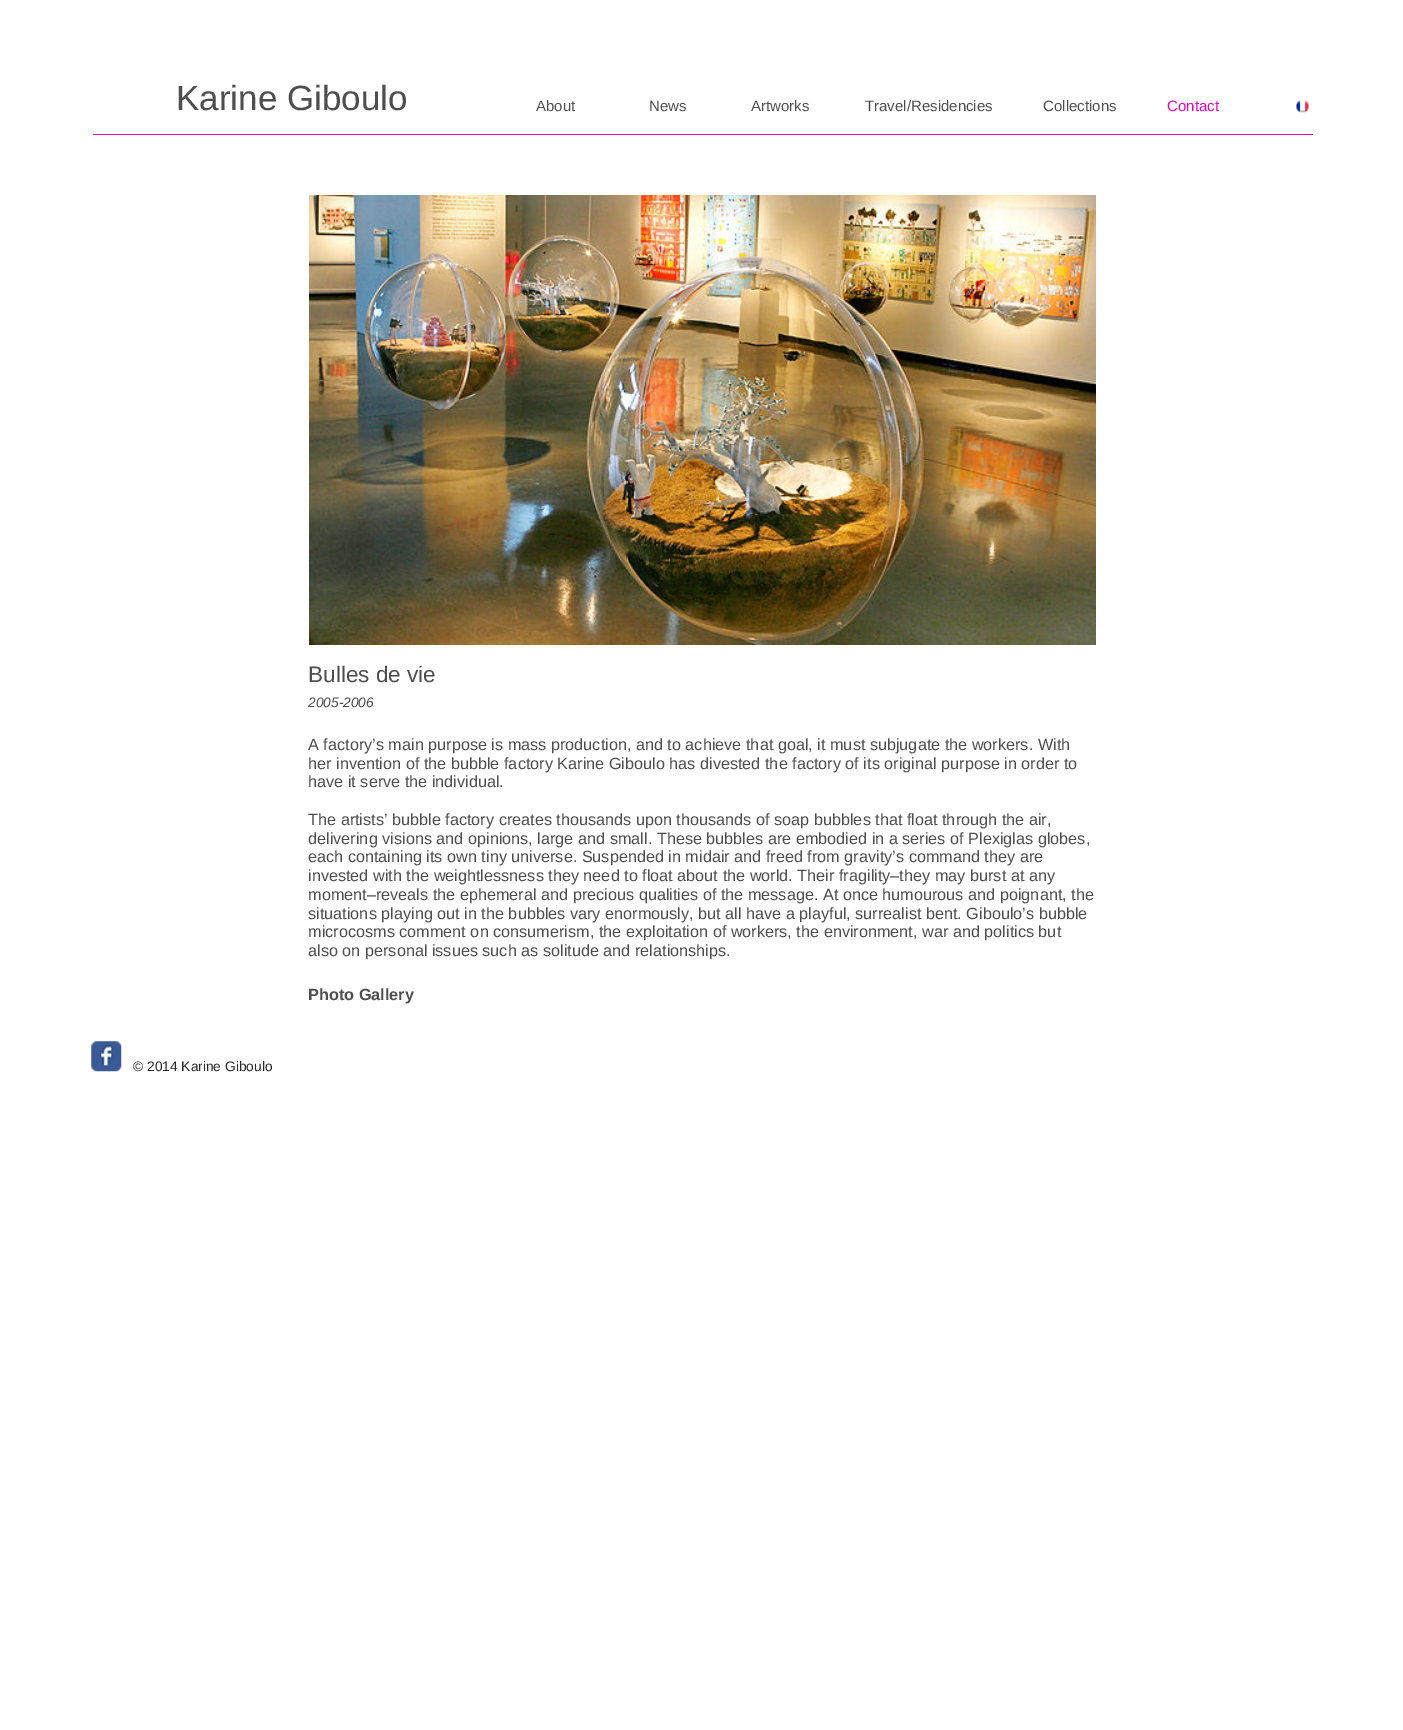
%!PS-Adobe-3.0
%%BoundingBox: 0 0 1403 1730
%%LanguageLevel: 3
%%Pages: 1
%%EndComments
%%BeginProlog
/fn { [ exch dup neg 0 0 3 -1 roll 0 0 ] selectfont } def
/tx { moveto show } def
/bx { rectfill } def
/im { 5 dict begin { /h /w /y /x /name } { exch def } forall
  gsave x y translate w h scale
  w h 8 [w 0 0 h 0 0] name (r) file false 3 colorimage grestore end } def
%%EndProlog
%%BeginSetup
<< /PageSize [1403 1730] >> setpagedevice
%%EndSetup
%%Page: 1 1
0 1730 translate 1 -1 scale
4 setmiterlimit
1 setgray
0 0 1403 1730 bx
/LiberationSans-Regular 35 fn
0.306 setgray
(Karine Giboulo) 176 110 tx
0.918 0.016 0.722 setrgbcolor
93 134 1220 1 bx
/LiberationSans-Regular 15 fn
0.306 setgray
(About) 536 111 tx
(News) 649 111 tx
(Artworks) 751 111 tx
(Travel/Residencies) 865 111 tx
(Collections) 1043 111 tx
0.918 0.016 0.722 setrgbcolor
(Contact) 1167 111 tx
(image0.raw) 1296 100 13 13 im
(image1.raw) 309 195 787 450 im
/LiberationSans-Regular 22.5 fn
0.306 setgray
(Bulles de vie) 308 682 tx
/LiberationSans-Italic 13.75 fn
(2005-2006) 308 707 tx
/LiberationSans-Regular 16.25 fn
(A factory’s main purpose is mass production, and to achieve that goal, it must subjugate the workers. With) 308 750 tx
(her invention of the bubble factory Karine Giboulo has divested the factory of its original purpose in order to) 308 769 tx
(have it serve the individual.) 308 787 tx
(The artists’ bubble factory creates thousands upon thousands of soap bubbles that float through the air,) 308 825 tx
(delivering visions and opinions, large and small. These bubbles are embodied in a series of Plexiglas globes,) 308 844 tx
(each containing its own tiny universe. Suspended in midair and freed from gravity’s command they are) 308 862 tx
(invested with the weightlessness they need to float about the world. Their fragility–they may burst at any) 308 881 tx
(moment–reveals the ephemeral and precious qualities of the message. At once humourous and poignant, the) 308 900 tx
(situations playing out in the bubbles vary enormously, but all have a playful, surrealist bent. Giboulo’s bubble) 308 919 tx
(microcosms comment on consumerism, the exploitation of workers, the environment, war and politics but) 308 937 tx
(also on personal issues such as solitude and relationships.) 308 956 tx
/LiberationSans-Bold 16.25 fn
(Photo Gallery) 308 1000 tx
(image2.raw) 91 1041 31 31 im
/LiberationSans-Regular 13.75 fn
0.153 setgray
(© 2014 Karine Giboulo) 133 1071 tx
showpage
%%EOF
